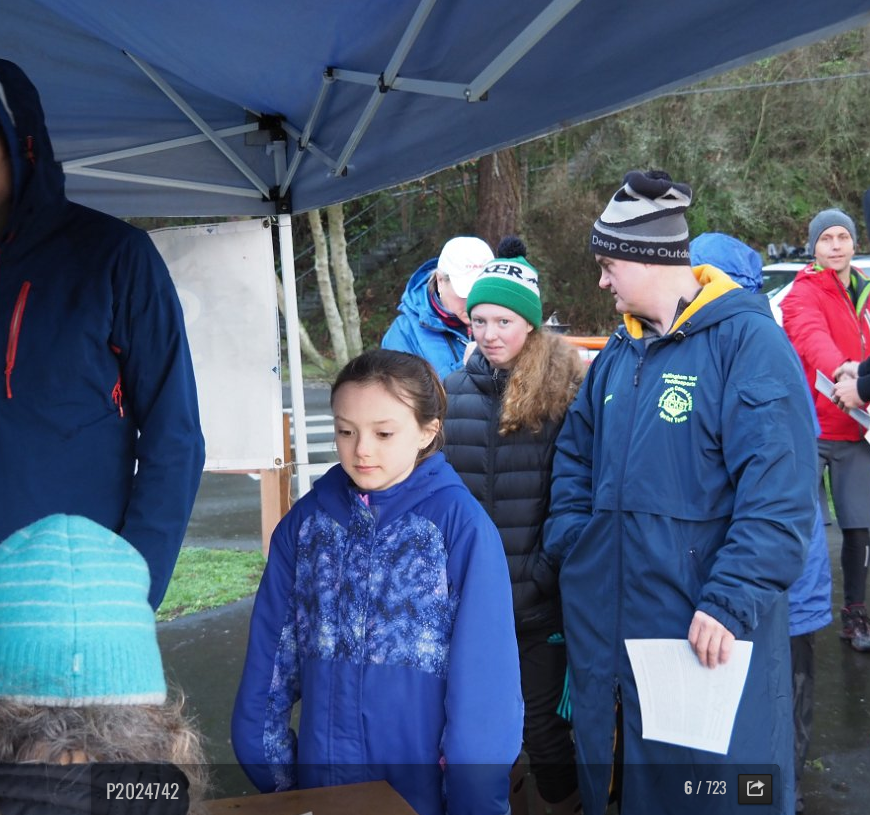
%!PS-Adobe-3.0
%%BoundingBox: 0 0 870 815
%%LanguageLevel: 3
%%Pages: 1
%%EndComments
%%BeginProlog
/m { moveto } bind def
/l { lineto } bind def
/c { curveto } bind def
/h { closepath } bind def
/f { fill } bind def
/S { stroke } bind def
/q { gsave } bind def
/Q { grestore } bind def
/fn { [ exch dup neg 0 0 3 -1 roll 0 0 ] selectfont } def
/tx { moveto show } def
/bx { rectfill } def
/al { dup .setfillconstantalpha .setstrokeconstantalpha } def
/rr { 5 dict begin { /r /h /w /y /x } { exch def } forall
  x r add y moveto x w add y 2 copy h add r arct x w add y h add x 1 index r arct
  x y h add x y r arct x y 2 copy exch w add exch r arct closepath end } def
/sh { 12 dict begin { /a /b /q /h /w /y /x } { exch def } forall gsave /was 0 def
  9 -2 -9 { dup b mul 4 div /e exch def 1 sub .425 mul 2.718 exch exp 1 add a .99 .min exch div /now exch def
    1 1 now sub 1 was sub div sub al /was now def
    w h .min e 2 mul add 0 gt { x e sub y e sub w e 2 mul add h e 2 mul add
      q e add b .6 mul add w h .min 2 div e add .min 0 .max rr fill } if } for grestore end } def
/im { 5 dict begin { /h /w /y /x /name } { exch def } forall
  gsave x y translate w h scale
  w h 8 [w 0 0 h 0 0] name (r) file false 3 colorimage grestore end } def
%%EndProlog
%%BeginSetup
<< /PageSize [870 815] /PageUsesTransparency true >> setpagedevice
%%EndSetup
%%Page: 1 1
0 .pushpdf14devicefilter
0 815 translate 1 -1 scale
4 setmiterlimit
1 setgray
0 0 870 815 bx
(image0.raw) 0 0 870 815 im
q
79 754 m 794 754 l 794 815 l 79 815 l h 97 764 m 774 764 l 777.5 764 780 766.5 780 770 c 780 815 l 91 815 l 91 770 l 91 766.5 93.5 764 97 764 c h eoclip newpath
0 setgray
92 767 689 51 6 4 0.6 sh
Q
0.4 al
0 setgray
97 764 m 774 764 l 777.5 764 780 766.5 780 770 c 780 815 l 91 815 l 91 770 l 91 766.5 93.5 764 97 764 c h f
/Oswald-Regular 19.5 fn
1 al
0.733 setgray
(P2024742) 106 799 tx
/Oswald-Bold 16 fn
(6) 684 794 tx
/Oswald-Regular 16 fn
(/ 723) 696 794 tx
0 setgray
738 775 34 30 2 1 0.6 sh
q 739 775 32 28 1 rr clip newpath
<< /ShadingType 2 /ColorSpace /DeviceRGB /Coords [755 775 755 803] /Extend [true true] /Function << /FunctionType 2 /Domain [0 1] /C0 [0.2 0.2 0.2] /C1 [0.133 0.133 0.133] /N 1 >> >> shfill Q
0.094 setgray
738.5 774.5 33 29 1.5 rr S
(image1.raw) 747 779 18 17 im
.poppdf14devicefilter showpage
%%EOF
